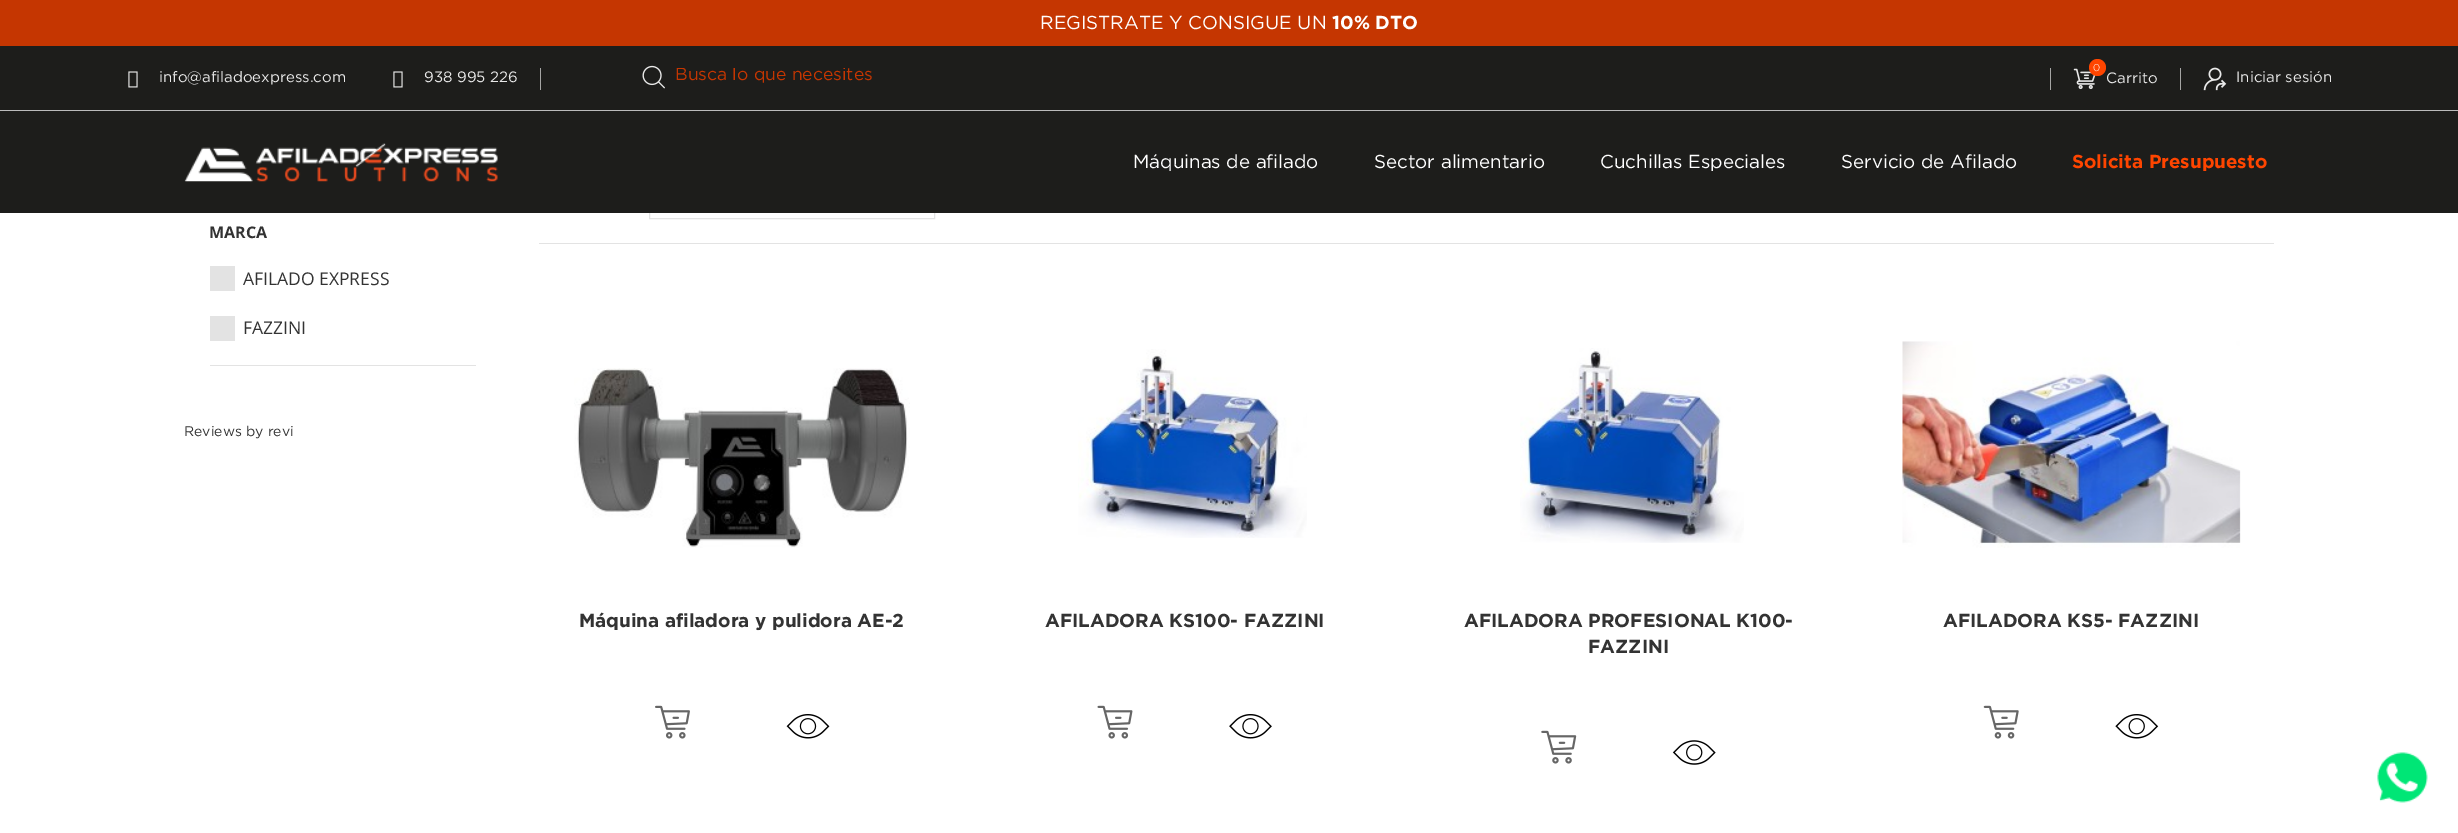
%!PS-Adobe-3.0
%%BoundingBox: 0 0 2458 833
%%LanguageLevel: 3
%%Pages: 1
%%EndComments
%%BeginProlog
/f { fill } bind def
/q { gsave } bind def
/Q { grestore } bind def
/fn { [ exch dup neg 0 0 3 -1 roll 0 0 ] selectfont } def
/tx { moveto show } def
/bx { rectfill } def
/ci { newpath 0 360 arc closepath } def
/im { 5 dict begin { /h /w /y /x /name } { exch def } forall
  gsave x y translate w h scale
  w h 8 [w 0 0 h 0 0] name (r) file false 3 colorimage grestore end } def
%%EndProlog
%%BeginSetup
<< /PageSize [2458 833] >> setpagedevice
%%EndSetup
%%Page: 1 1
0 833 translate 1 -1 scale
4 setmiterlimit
1 setgray
0 0 2458 833 bx
0.89 setgray
649.5 184.5 285 34 rectstroke
0.114 0.114 0.106 setrgbcolor
0 46 2458 167 bx
0.773 0.212 0.004 setrgbcolor
0 0 2458 46 bx
/Gotham-Regular 18.75 fn
1 setgray
(REGISTRATE Y CONSIGUE UN) 1040 29 tx
/Gotham-Bold 18.75 fn
(10% DTO) 1332 29 tx
0.733 setgray
0 110 2458 1 bx
(image0.raw) 128 71 10 17 im
/Gotham-Regular 15 fn
0.91 setgray
(info@afiladoexpress.com) 159 82 tx
0.647 0.647 0.643 setrgbcolor
540 68 1 22 bx
(image0.raw) 393 71 10 17 im
0.91 setgray
(938 995 226) 424 82 tx
(image1.raw) 642 65 23 24 im
q
675 68 1273 16 rectclip
/Gotham-Regular 17.5 fn
0.773 0.212 0.004 setrgbcolor
(Busca lo que necesites) 675 80 tx
Q
0.647 0.647 0.643 setrgbcolor
2050 68 1 22 bx
(image2.raw) 2073 68 23 22 im
1 0.271 0 setrgbcolor
2097.5 67.5 8.5 ci f
/Gotham-Light 10 fn
1 setgray
(0) 2093 71 tx
/Gotham-Regular 15 fn
0.91 setgray
(Carrito) 2106 83 tx
0.647 0.647 0.643 setrgbcolor
2180 68 1 22 bx
(image3.raw) 2203 67 24 24 im
0.91 setgray
(Iniciar sesión) 2236 82 tx
(image4.raw) 184 143 314 39 im
/Gotham-Regular 18.75 fn
1 setgray
(Máquinas de afilado) 1133 168 tx
(Sector alimentario) 1374 168 tx
(Cuchillas Especiales) 1600 168 tx
(Servicio de Afilado) 1841 168 tx
/Gotham-Bold 18.75 fn
1 0.271 0 setrgbcolor
(Solicita Presupuesto) 2072 168 tx
0.89 setgray
210 365 266 1 bx
/OpenSans-Bold 16 fn
0.2 setgray
(MARCA) 209 238 tx
0.89 setgray
210 266 25 25 bx
/OpenSans-Regular 17.5 fn
0.2 setgray
(AFILADO EXPRESS) 243 285 tx
0.89 setgray
210 316 25 25 bx
0.2 setgray
(FAZZINI) 243 334 tx
/Gotham-Regular 14 fn
(Reviews by revi) 184 436 tx
0.89 setgray
539 243 1735 1 bx
(image5.raw) 574 368 336 180 im
/Gotham-Bold 18.75 fn
0.2 setgray
(Máquina afiladora y pulidora AE-2) 579 627 tx
(image6.raw) 655 705 35 34 im
(image7.raw) 786 714 44 25 im
(image8.raw) 1078 349 229 189 im
(AFILADORA KS100- FAZZINI) 1045 627 tx
(image9.raw) 1097 705 36 34 im
(image10.raw) 1229 714 43 25 im
(image11.raw) 1520 348 224 195 im
(AFILADORA PROFESIONAL K100-) 1464 627 tx
(FAZZINI) 1588 653 tx
(image12.raw) 1541 730 36 34 im
(image13.raw) 1672 740 44 25 im
(image14.raw) 1902 341 339 207 im
(AFILADORA KS5- FAZZINI) 1943 627 tx
(image15.raw) 1983 705 36 34 im
(image16.raw) 2115 714 44 25 im
(image17.raw) 2377 752 51 51 im
showpage
%%EOF
